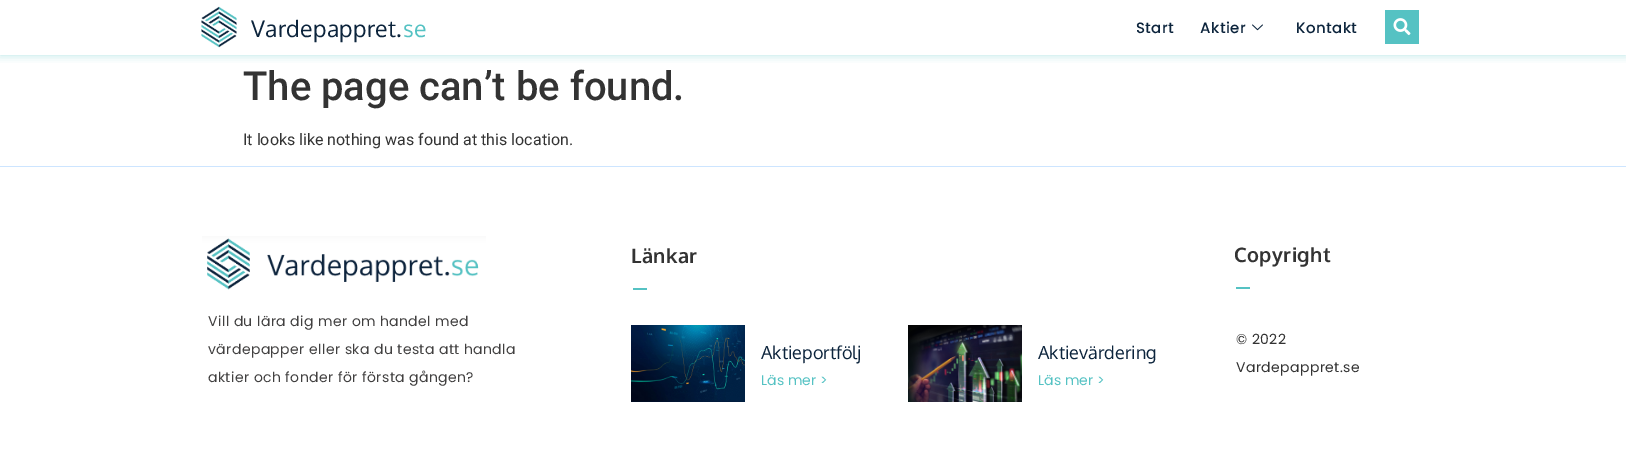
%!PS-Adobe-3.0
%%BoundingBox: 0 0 1626 463
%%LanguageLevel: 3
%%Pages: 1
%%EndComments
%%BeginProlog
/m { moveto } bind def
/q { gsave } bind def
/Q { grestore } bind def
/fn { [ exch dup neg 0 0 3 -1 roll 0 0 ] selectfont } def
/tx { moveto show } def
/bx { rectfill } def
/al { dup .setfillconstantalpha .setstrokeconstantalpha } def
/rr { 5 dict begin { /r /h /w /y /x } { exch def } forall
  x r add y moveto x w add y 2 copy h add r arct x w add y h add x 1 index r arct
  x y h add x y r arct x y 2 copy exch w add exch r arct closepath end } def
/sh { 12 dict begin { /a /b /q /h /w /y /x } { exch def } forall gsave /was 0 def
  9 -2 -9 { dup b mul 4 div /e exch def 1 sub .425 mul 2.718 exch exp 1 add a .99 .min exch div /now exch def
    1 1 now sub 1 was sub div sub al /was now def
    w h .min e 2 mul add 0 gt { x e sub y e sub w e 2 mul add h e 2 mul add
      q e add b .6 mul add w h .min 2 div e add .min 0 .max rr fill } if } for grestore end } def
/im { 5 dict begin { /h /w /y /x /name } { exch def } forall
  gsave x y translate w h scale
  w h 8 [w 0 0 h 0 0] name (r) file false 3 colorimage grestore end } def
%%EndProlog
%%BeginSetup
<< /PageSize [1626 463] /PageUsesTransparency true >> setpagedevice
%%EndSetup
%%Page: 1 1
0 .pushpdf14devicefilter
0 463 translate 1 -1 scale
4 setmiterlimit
1 setgray
0 0 1626 463 bx
q
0 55 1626 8 rectclip
0.333 0.761 0.765 setrgbcolor
0 -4 1626 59 0 5 0.42 sh
Q
(image0.raw) 201 6 36 42 im
/Oxygen-Regular 23 fn
0.047 0.141 0.235 setrgbcolor
251 37 m 0.25 0 (Vardepappret.) ashow
0.333 0.761 0.765 setrgbcolor
403 37 m 0.25 0 (se) ashow
/Poppins-Medium 15 fn
0.047 0.141 0.235 setrgbcolor
1136 33 m 0.4 0 (Start) ashow
1200 33 m 0.4 0 (Aktier) ashow
(image1.raw) 1252 24 11 7 im
1296 33 m 0.4 0 (Kontakt) ashow
0.333 0.761 0.765 setrgbcolor
1385 10 34 34 bx
(image2.raw) 1393 18 18 18 im
/Roboto-Medium 40 fn
0.2 setgray
(The page can’t be found.) 243 100 tx
/Roboto-Regular 16 fn
(It looks like nothing was found at this location.) 243 145 tx
0.804 0.898 1 setrgbcolor
0 166 1626 1 bx
(image3.raw) 202 236 284 54 im
/Poppins-Regular 14 fn
0.255 0.251 0.251 setrgbcolor
208 326 m 0.4 0 (Vill du lära dig mer om handel med) ashow
208 354 m 0.4 0 (värdepapper eller ska du testa att handla) ashow
208 382 m 0.4 0 (aktier och fonder för första gången?) ashow
/Oxygen-Bold 20 fn
0.2 setgray
631 263 m 0.4 0 (Länkar) ashow
0.333 0.761 0.765 setrgbcolor
633 288 14 2 bx
(image4.raw) 631 325 114 77 im
/Oxygen-Regular 18 fn
0.047 0.141 0.235 setrgbcolor
(Aktieportfölj) 761 359 tx
/Poppins-Regular 14 fn
0.333 0.761 0.765 setrgbcolor
(Läs mer >) 761 385 tx
(image5.raw) 908 325 114 77 im
/Oxygen-Regular 18 fn
0.047 0.141 0.235 setrgbcolor
(Aktievärdering) 1038 359 tx
/Poppins-Regular 14 fn
0.333 0.761 0.765 setrgbcolor
(Läs mer >) 1038 385 tx
/Oxygen-Bold 20 fn
0.2 setgray
1234 262 m 0.4 0 (Copyright) ashow
0.333 0.761 0.765 setrgbcolor
1236 287 14 2 bx
/Poppins-Regular 14 fn
0.2 setgray
1236 344 m 0.4 0 (© 2022) ashow
1236 372 m 0.4 0 (Vardepappret.se) ashow
.poppdf14devicefilter showpage
%%EOF
